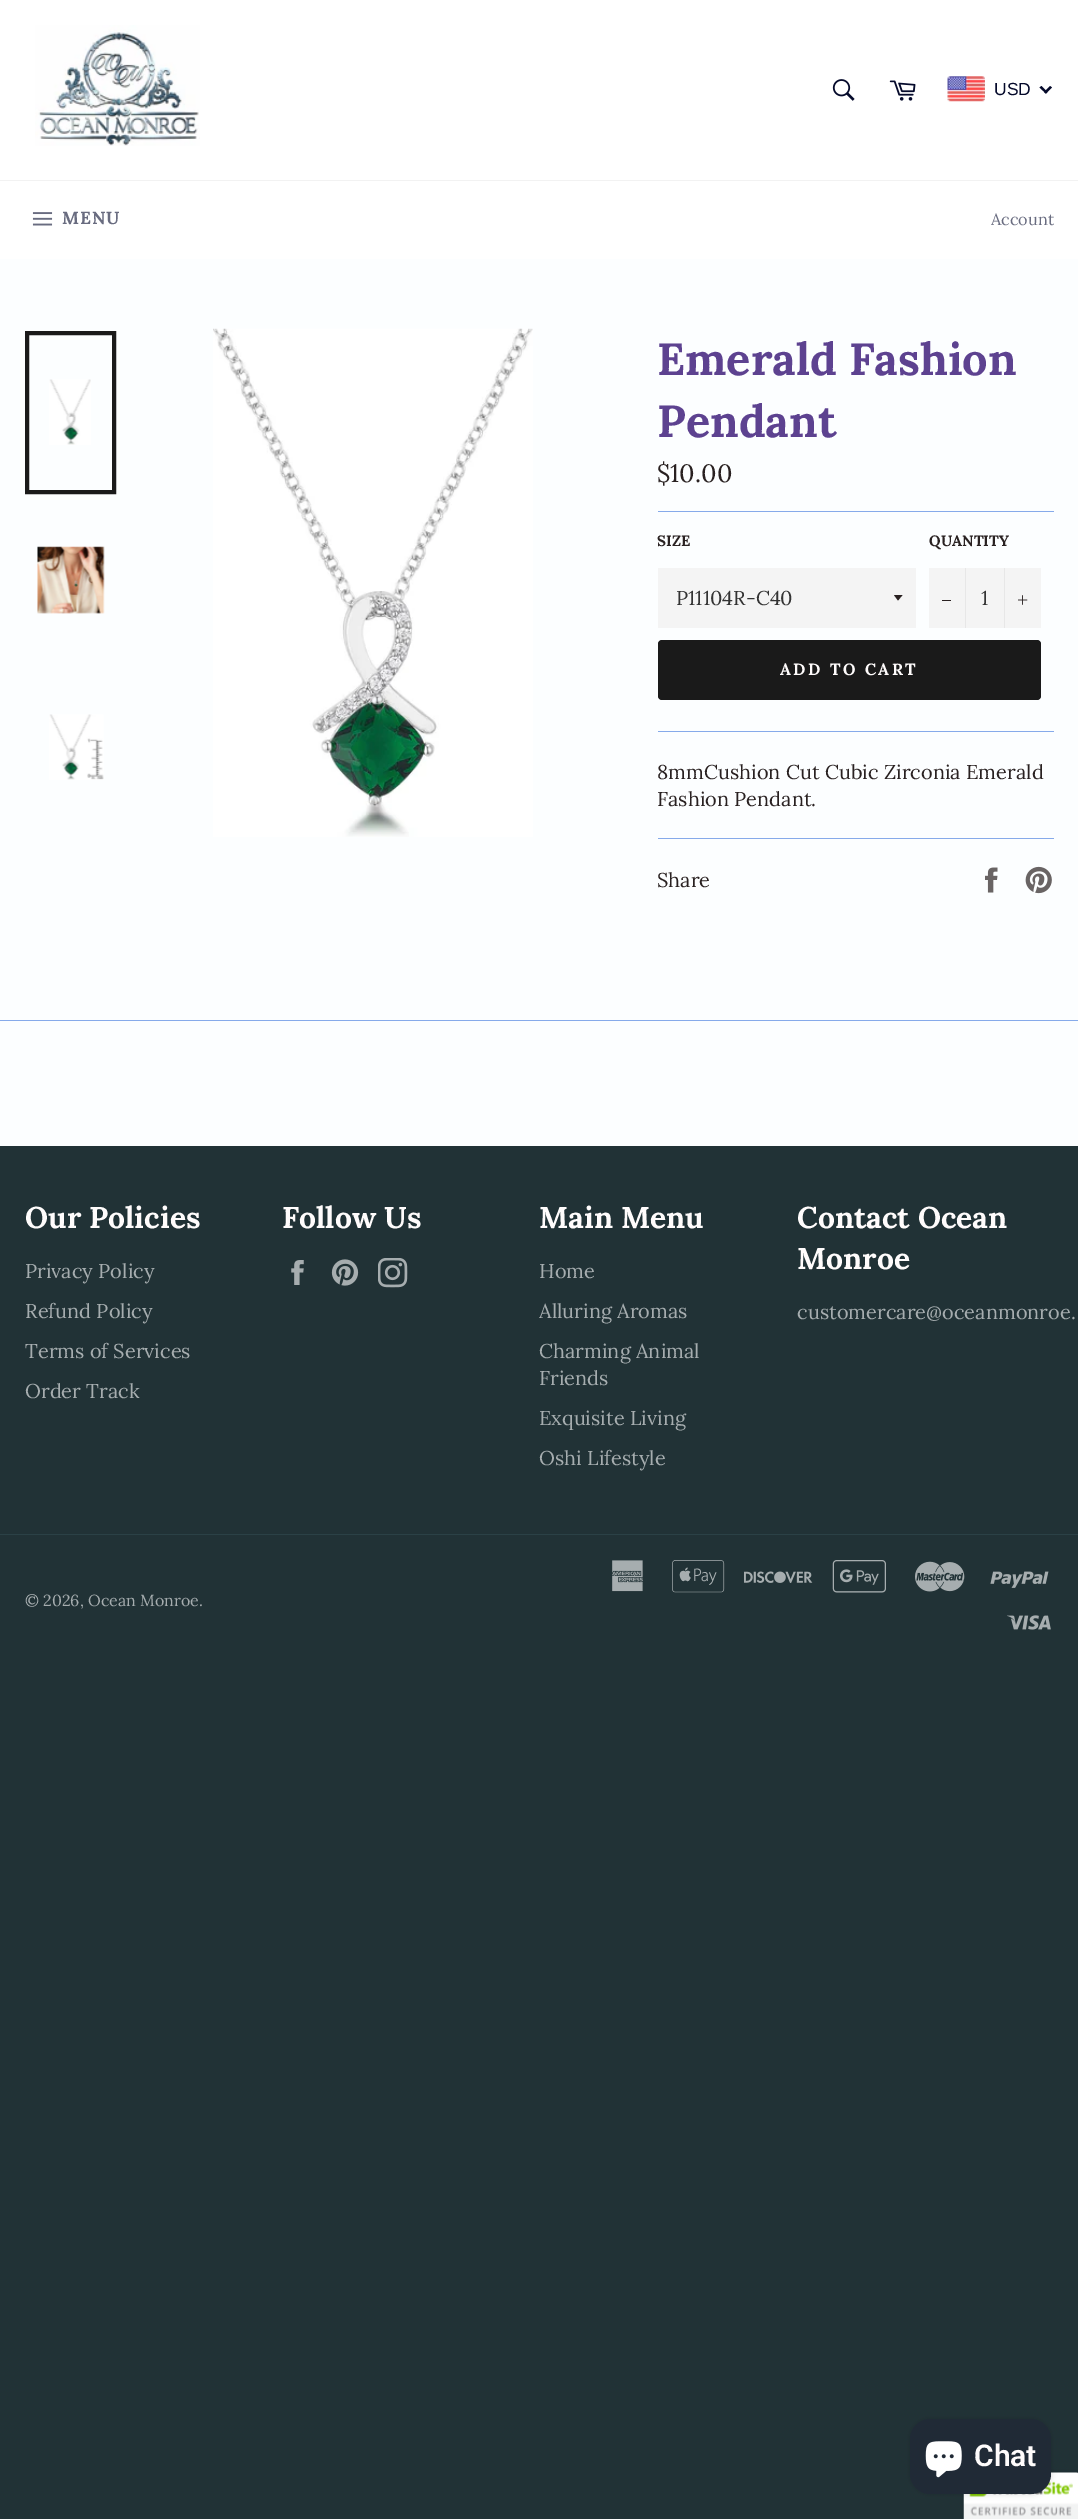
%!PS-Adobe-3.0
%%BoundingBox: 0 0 1078 2519
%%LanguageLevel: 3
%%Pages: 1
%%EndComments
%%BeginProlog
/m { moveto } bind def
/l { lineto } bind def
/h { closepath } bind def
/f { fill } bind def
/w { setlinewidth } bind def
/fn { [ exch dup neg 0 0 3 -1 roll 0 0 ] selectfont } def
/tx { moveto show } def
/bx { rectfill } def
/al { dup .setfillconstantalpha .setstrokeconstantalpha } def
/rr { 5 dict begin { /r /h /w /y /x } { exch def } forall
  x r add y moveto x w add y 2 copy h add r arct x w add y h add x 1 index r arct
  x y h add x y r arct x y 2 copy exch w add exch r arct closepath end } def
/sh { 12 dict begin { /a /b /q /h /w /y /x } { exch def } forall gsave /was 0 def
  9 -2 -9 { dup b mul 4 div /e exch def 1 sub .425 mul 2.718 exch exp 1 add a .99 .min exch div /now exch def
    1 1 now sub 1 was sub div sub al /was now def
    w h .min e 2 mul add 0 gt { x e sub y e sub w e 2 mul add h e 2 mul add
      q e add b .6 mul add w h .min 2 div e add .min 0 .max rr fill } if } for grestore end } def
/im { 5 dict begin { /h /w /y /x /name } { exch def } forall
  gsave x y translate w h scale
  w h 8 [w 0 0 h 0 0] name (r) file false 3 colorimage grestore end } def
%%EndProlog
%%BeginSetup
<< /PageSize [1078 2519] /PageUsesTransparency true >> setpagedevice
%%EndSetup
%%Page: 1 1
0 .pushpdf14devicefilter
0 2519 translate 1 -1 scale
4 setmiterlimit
0.129 0.196 0.212 setrgbcolor
0 0 1078 2519 bx
1 setgray
0 0 1078 180 bx
(image0.raw) 35 25 165 121 im
(image1.raw) 832 79 23 22 im
(image2.raw) 889 80 27 21 im
(image3.raw) 947 76 38 26 im
/LiberationSans-Regular 17.5 fn
0.02 0.039 0.169 setrgbcolor
(USD) 994 95 tx
1050 86 m 1052 87.5 l 1046 93.5 l 1044 92 l h f
1041.5 86 m 1047.5 92 l 1046 93.5 l 1039.5 87.5 l h f
1 setgray
0 181 1078 78 bx
0.949 setgray
0 180 1078 1 bx
(image4.raw) 32 212 21 14 im
/Lora-Bold 17.5 fn
0.412 0.424 0.502 setrgbcolor
62 224 m 1 0 (MENU) ashow
/Lora-Regular 16.25 fn
(Account) 991 225 tx
0.988 0.996 1 setrgbcolor
0 259 1078 887 bx
(image5.raw) 49 379 42 66 im
0.102 setgray
4 w
27 333 87 159 rectstroke
(image6.raw) 37 546 68 68 im
(image7.raw) 49 714 55 66 im
(image8.raw) 213 328 320 509 im
/Lora-Bold 45 fn
0.365 0.259 0.565 setrgbcolor
(Emerald Fashion) 657 375 tx
(Pendant) 657 437 tx
/Lora-Regular 25 fn
0.161 0.129 0.129 setrgbcolor
($10.00) 657 482 tx
0.525 0.667 0.918 setrgbcolor
658 511 396 1 bx
/Lora-Bold 15 fn
0.161 0.129 0.129 setrgbcolor
(SIZE) 657 546 tx
0.957 setgray
658 568 258 60 bx
0.161 0.129 0.129 setrgbcolor
894 595 m 898 600.5 l 902.5 595 l h f
/Lora-Regular 20 fn
0.2 setgray
(P11104R-C40) 676 605 tx
/Lora-Bold 15 fn
0.161 0.129 0.129 setrgbcolor
(QUANTITY) 929 546 tx
0.957 setgray
929 568 112 60 bx
0.906 setgray
965 568 1 60 bx
0.161 0.129 0.129 setrgbcolor
942 600 9 1 bx
/Lora-Regular 20 fn
0.2 setgray
(1) 981 605 tx
0.906 setgray
1004 568 1 60 bx
(image9.raw) 1018 595 10 10 im
0.102 setgray
658 640 383 60 4 rr f
/Lora-Bold 16.25 fn
1 0.988 0.988 setrgbcolor
780 675 m 2.5 0 (ADD TO CART) ashow
0.525 0.667 0.918 setrgbcolor
658 731 396 1 bx
/Lora-Regular 20 fn
0.161 0.129 0.129 setrgbcolor
(8mmCushion Cut Cubic Zirconia Emerald) 657 779 tx
(Fashion Pendant.) 657 806 tx
0.525 0.667 0.918 setrgbcolor
658 838 396 1 bx
0.161 0.129 0.129 setrgbcolor
(Share) 657 887 tx
(image10.raw) 985 867 13 26 im
(image11.raw) 1025 866 27 28 im
0.525 0.667 0.918 setrgbcolor
0 1020 1078 1 bx
/Lora-Bold 30 fn
1 0.988 0.988 setrgbcolor
(Our Policies) 25 1228 tx
/Lora-Regular 20 fn
0.651 0.678 0.686 setrgbcolor
(Privacy Policy) 25 1278 tx
(Refund Policy) 25 1318 tx
(Terms of Services) 25 1358 tx
(Order Track) 25 1398 tx
/Lora-Bold 30 fn
1 0.988 0.988 setrgbcolor
(Follow Us) 282 1228 tx
(image12.raw) 291 1260 13 25 im
(image13.raw) 331 1259 28 27 im
(image14.raw) 378 1258 30 30 im
(Main Menu) 539 1228 tx
/Lora-Regular 20 fn
0.651 0.678 0.686 setrgbcolor
(Home) 539 1278 tx
(Alluring Aromas) 539 1318 tx
(Charming Animal) 539 1358 tx
(Friends) 539 1385 tx
(Exquisite Living) 539 1425 tx
(Oshi Lifestyle) 539 1465 tx
/Lora-Bold 30 fn
1 0.988 0.988 setrgbcolor
(Contact Ocean) 797 1228 tx
(Monroe) 797 1269 tx
/Lora-Regular 20 fn
0.651 0.678 0.686 setrgbcolor
(customercare@oceanmonroe.) 797 1319 tx
0.169 0.255 0.275 setrgbcolor
0 1534 1078 1 bx
/Lora-Regular 16 fn
0.651 0.678 0.686 setrgbcolor
(© 2026, Ocean Monroe.) 25 1606 tx
(image15.raw) 612 1560 31 32 im
(image16.raw) 672 1560 53 33 im
(image17.raw) 744 1571 69 12 im
(image18.raw) 832 1560 54 33 im
(image19.raw) 915 1561 50 31 im
(image20.raw) 990 1571 59 17 im
(image21.raw) 1007 1615 44 15 im
0 setgray
964 2473 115 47 2.5 3 0.2 sh
(image23.raw) 963 2472 115 47 im
910 2419 141 75 20 3 0.15 sh
0.125 0.165 0.212 setrgbcolor
910 2419 141 75 20 rr f
(image22.raw) 925 2441 37 37 im
/Roboto-SemiBold 30 fn
1 0.988 0.988 setrgbcolor
(Chat) 974 2466 tx
.poppdf14devicefilter showpage
%%EOF
